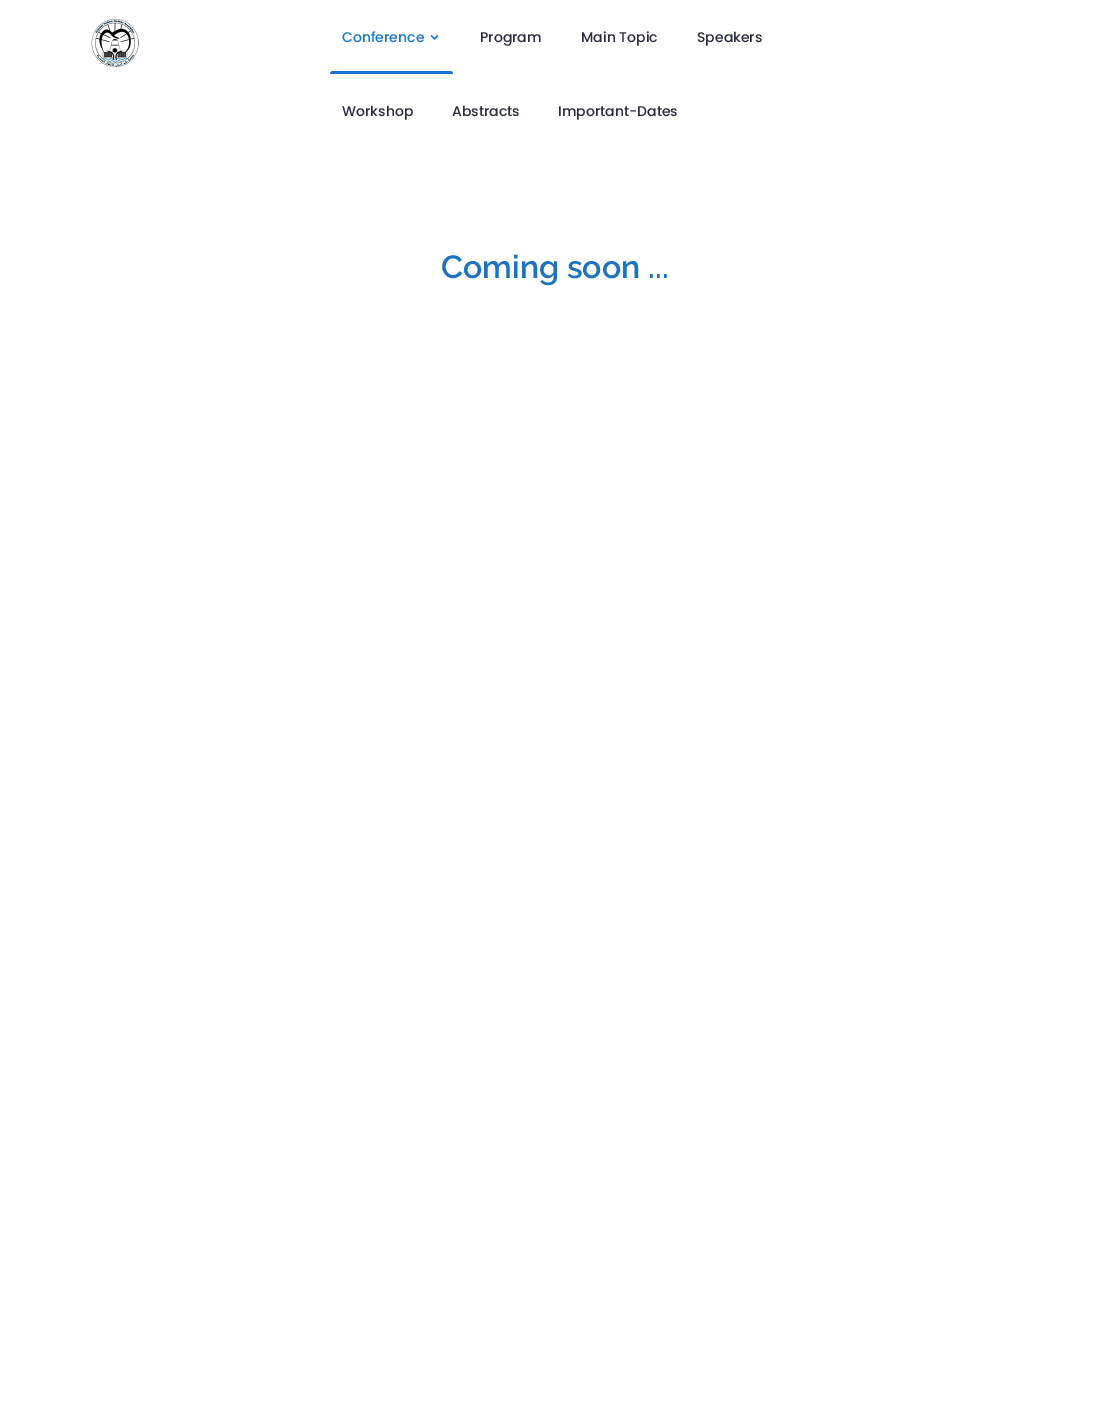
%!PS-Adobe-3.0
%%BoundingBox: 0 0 1109 1428
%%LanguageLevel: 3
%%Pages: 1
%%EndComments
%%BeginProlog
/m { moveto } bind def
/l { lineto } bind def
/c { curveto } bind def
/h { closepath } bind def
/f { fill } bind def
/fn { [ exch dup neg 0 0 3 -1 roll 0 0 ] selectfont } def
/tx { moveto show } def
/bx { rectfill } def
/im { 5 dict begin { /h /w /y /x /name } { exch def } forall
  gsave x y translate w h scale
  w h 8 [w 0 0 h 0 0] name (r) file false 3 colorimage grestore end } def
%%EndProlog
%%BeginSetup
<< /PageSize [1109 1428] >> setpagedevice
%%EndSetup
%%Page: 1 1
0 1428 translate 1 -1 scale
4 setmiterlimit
1 setgray
0 0 1109 1428 bx
(image0.raw) 91 19 48 48 im
/Poppins-Medium 14 fn
0.102 0.463 0.82 setrgbcolor
(Conference) 342 42 tx
(image1.raw) 430 35 9 5 im
333 71 m 450 71 l 451.5 71 453 72.5 453 74 c 330 74 l 330 72.5 331.5 71 333 71 c h f
0.173 0.176 0.247 setrgbcolor
(Program) 480 42 tx
(Main Topic) 581 42 tx
(Speakers) 697 42 tx
(Workshop) 342 116 tx
(Abstracts) 452 116 tx
(Important-Dates) 558 116 tx
/Raleway-SemiBold 32 fn
0.118 0.451 0.745 setrgbcolor
(Coming soon ...) 441 278 tx
showpage
%%EOF
